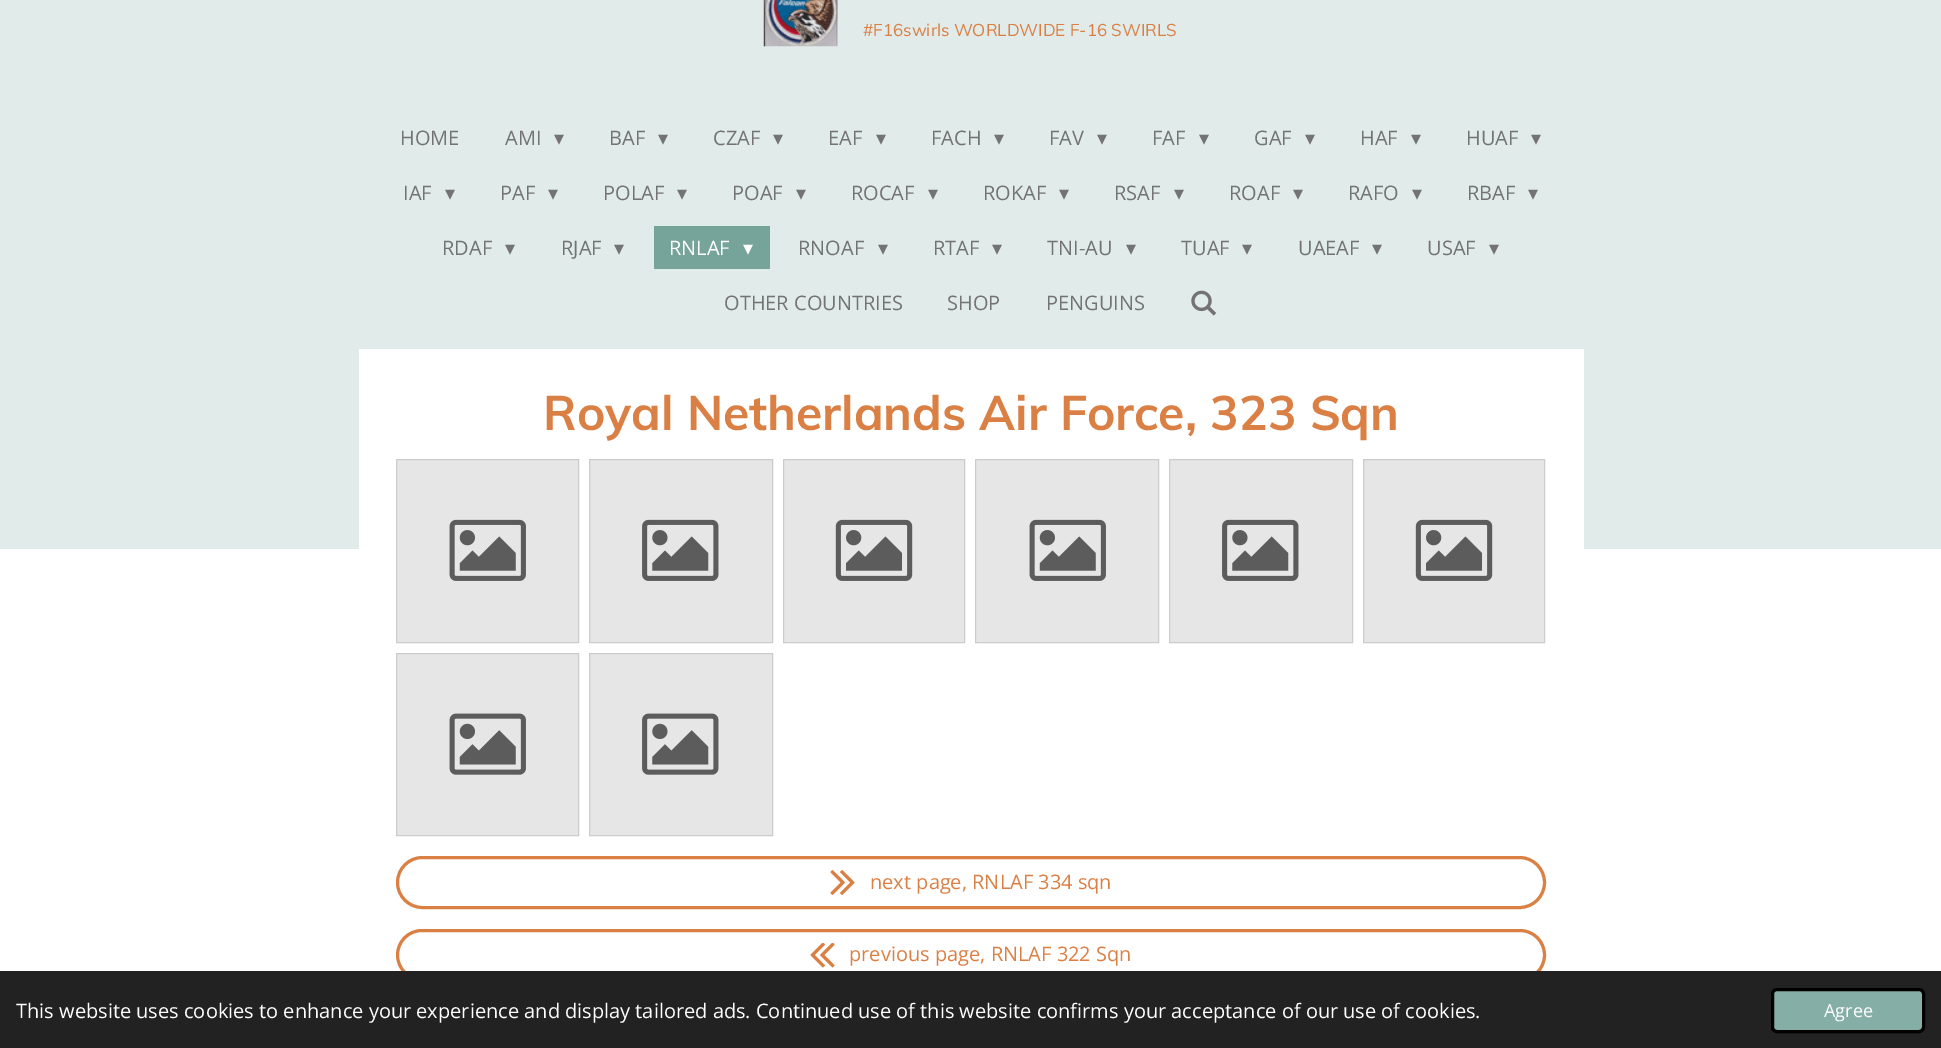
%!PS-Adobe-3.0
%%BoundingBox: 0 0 1941 1048
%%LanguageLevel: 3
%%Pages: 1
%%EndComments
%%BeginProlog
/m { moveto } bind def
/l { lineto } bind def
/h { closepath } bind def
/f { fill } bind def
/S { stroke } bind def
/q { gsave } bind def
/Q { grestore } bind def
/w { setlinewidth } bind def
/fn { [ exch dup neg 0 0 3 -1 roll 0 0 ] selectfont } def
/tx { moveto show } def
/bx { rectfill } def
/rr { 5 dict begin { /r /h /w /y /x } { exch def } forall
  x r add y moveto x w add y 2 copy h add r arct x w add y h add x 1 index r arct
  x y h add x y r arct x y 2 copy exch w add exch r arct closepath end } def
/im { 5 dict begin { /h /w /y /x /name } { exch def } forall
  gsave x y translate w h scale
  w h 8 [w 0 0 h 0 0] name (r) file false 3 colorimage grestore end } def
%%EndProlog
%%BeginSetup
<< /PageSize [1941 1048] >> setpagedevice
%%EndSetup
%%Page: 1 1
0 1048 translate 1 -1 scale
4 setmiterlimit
1 setgray
0 0 1941 1048 bx
0.882 0.922 0.914 setrgbcolor
0 0 1941 549 bx
(image0.raw) 763 0 75 47 im
/Muli-Regular 17 fn
0.855 0.502 0.267 setrgbcolor
(#F16swirls WORLDWIDE F-16 SWIRLS) 863 36 tx
/OpenSans-Regular 20 fn
0.451 setgray
(HOME) 400 145 tx
(AMI) 505 145 tx
/DejaVuSans-Regular 20 fn
(▾) 554 145 tx
/OpenSans-Regular 20 fn
(BAF) 609 145 tx
/DejaVuSans-Regular 20 fn
(▾) 658 145 tx
/OpenSans-Regular 20 fn
(CZAF) 713 145 tx
/DejaVuSans-Regular 20 fn
(▾) 773 145 tx
/OpenSans-Regular 20 fn
(EAF) 828 145 tx
/DejaVuSans-Regular 20 fn
(▾) 876 145 tx
/OpenSans-Regular 20 fn
(FACH) 931 145 tx
/DejaVuSans-Regular 20 fn
(▾) 994 145 tx
/OpenSans-Regular 20 fn
(FAV) 1049 145 tx
/DejaVuSans-Regular 20 fn
(▾) 1097 145 tx
/OpenSans-Regular 20 fn
(FAF) 1152 145 tx
/DejaVuSans-Regular 20 fn
(▾) 1199 145 tx
/OpenSans-Regular 20 fn
(GAF) 1254 145 tx
/DejaVuSans-Regular 20 fn
(▾) 1305 145 tx
/OpenSans-Regular 20 fn
(HAF) 1360 145 tx
/DejaVuSans-Regular 20 fn
(▾) 1411 145 tx
/OpenSans-Regular 20 fn
(HUAF) 1466 145 tx
/DejaVuSans-Regular 20 fn
(▾) 1531 145 tx
/OpenSans-Regular 20 fn
(IAF) 403 200 tx
/DejaVuSans-Regular 20 fn
(▾) 445 200 tx
/OpenSans-Regular 20 fn
(PAF) 500 200 tx
/DejaVuSans-Regular 20 fn
(▾) 548 200 tx
/OpenSans-Regular 20 fn
(POLAF) 603 200 tx
/DejaVuSans-Regular 20 fn
(▾) 677 200 tx
/OpenSans-Regular 20 fn
(POAF) 732 200 tx
/DejaVuSans-Regular 20 fn
(▾) 796 200 tx
/OpenSans-Regular 20 fn
(ROCAF) 851 200 tx
/DejaVuSans-Regular 20 fn
(▾) 928 200 tx
/OpenSans-Regular 20 fn
(ROKAF) 983 200 tx
/DejaVuSans-Regular 20 fn
(▾) 1059 200 tx
/OpenSans-Regular 20 fn
(RSAF) 1114 200 tx
/DejaVuSans-Regular 20 fn
(▾) 1174 200 tx
/OpenSans-Regular 20 fn
(ROAF) 1229 200 tx
/DejaVuSans-Regular 20 fn
(▾) 1293 200 tx
/OpenSans-Regular 20 fn
(RAFO) 1348 200 tx
/DejaVuSans-Regular 20 fn
(▾) 1412 200 tx
/OpenSans-Regular 20 fn
(RBAF) 1467 200 tx
/DejaVuSans-Regular 20 fn
(▾) 1528 200 tx
/OpenSans-Regular 20 fn
(RDAF) 442 255 tx
/DejaVuSans-Regular 20 fn
(▾) 505 255 tx
/OpenSans-Regular 20 fn
(RJAF) 561 255 tx
/DejaVuSans-Regular 20 fn
(▾) 614 255 tx
0.463 0.643 0.604 setrgbcolor
654 226 116 43 bx
/OpenSans-Regular 20 fn
1 setgray
(RNLAF) 669 255 tx
/DejaVuSans-Regular 20 fn
(▾) 743 255 tx
/OpenSans-Regular 20 fn
0.451 setgray
(RNOAF) 798 255 tx
/DejaVuSans-Regular 20 fn
(▾) 878 255 tx
/OpenSans-Regular 20 fn
(RTAF) 933 255 tx
/DejaVuSans-Regular 20 fn
(▾) 992 255 tx
/OpenSans-Regular 20 fn
(TNI-AU) 1047 255 tx
/DejaVuSans-Regular 20 fn
(▾) 1126 255 tx
/OpenSans-Regular 20 fn
(TUAF) 1181 255 tx
/DejaVuSans-Regular 20 fn
(▾) 1242 255 tx
/OpenSans-Regular 20 fn
(UAEAF) 1298 255 tx
/DejaVuSans-Regular 20 fn
(▾) 1372 255 tx
/OpenSans-Regular 20 fn
(USAF) 1427 255 tx
/DejaVuSans-Regular 20 fn
(▾) 1489 255 tx
/OpenSans-Regular 20 fn
(OTHER COUNTRIES) 724 310 tx
(SHOP) 947 310 tx
(PENGUINS) 1046 310 tx
(image1.raw) 1191 290 26 26 im
1 setgray
359 349 1225 200 bx
/Muli-Bold 48 fn
0.855 0.502 0.267 setrgbcolor
(Royal Netherlands Air Force, 323 Sqn) 543 430 tx
0.902 setgray
396.5 459.5 m 578.5 459.5 l 578.5 642.5 l 396.5 642.5 l h q f Q
0.8 setgray
S
(image2.raw) 449 519 77 62 im
0.902 setgray
589.5 459.5 m 772.5 459.5 l 772.5 642.5 l 589.5 642.5 l h q f Q
0.8 setgray
S
(image3.raw) 642 519 77 62 im
0.902 setgray
783.5 459.5 m 964.5 459.5 l 964.5 642.5 l 783.5 642.5 l h q f Q
0.8 setgray
S
(image4.raw) 835 519 78 62 im
0.902 setgray
975.5 459.5 m 1158.5 459.5 l 1158.5 642.5 l 975.5 642.5 l h q f Q
0.8 setgray
S
(image2.raw) 1029 519 77 62 im
0.902 setgray
1169.5 459.5 m 1352.5 459.5 l 1352.5 642.5 l 1169.5 642.5 l h q f Q
0.8 setgray
S
(image3.raw) 1222 519 77 62 im
0.902 setgray
1363.5 459.5 m 1544.5 459.5 l 1544.5 642.5 l 1363.5 642.5 l h q f Q
0.8 setgray
S
(image4.raw) 1415 519 78 62 im
0.902 setgray
396.5 653.5 m 578.5 653.5 l 578.5 835.5 l 396.5 835.5 l h q f Q
0.8 setgray
S
(image5.raw) 449 713 77 62 im
0.902 setgray
589.5 653.5 m 772.5 653.5 l 772.5 835.5 l 589.5 835.5 l h q f Q
0.8 setgray
S
(image6.raw) 642 713 77 62 im
0.855 0.502 0.267 setrgbcolor
3 w
397.5 857.5 1147 50 25 rr S
(image7.raw) 830 870 25 25 im
/OpenSans-Regular 20 fn
(next page, RNLAF 334 sqn) 870 889 tx
397.5 930.5 1147 49 24.5 rr S
(image8.raw) 810 943 25 25 im
(previous page, RNLAF 322 Sqn) 849 961 tx
0.133 setgray
0 971 1941 77 bx
1 setgray
(This website uses cookies to enhance your experience and display tailored ads. Continued use of this website confirms your acceptance of our use of cookies.) 16 1018 tx
0.522 0.682 0.651 setrgbcolor
1772.5 989.5 151 42 4.5 rr q f Q
0 setgray
S
/OpenSans-Regular 18 fn
1 setgray
(Agree) 1824 1017 tx
showpage
%%EOF
